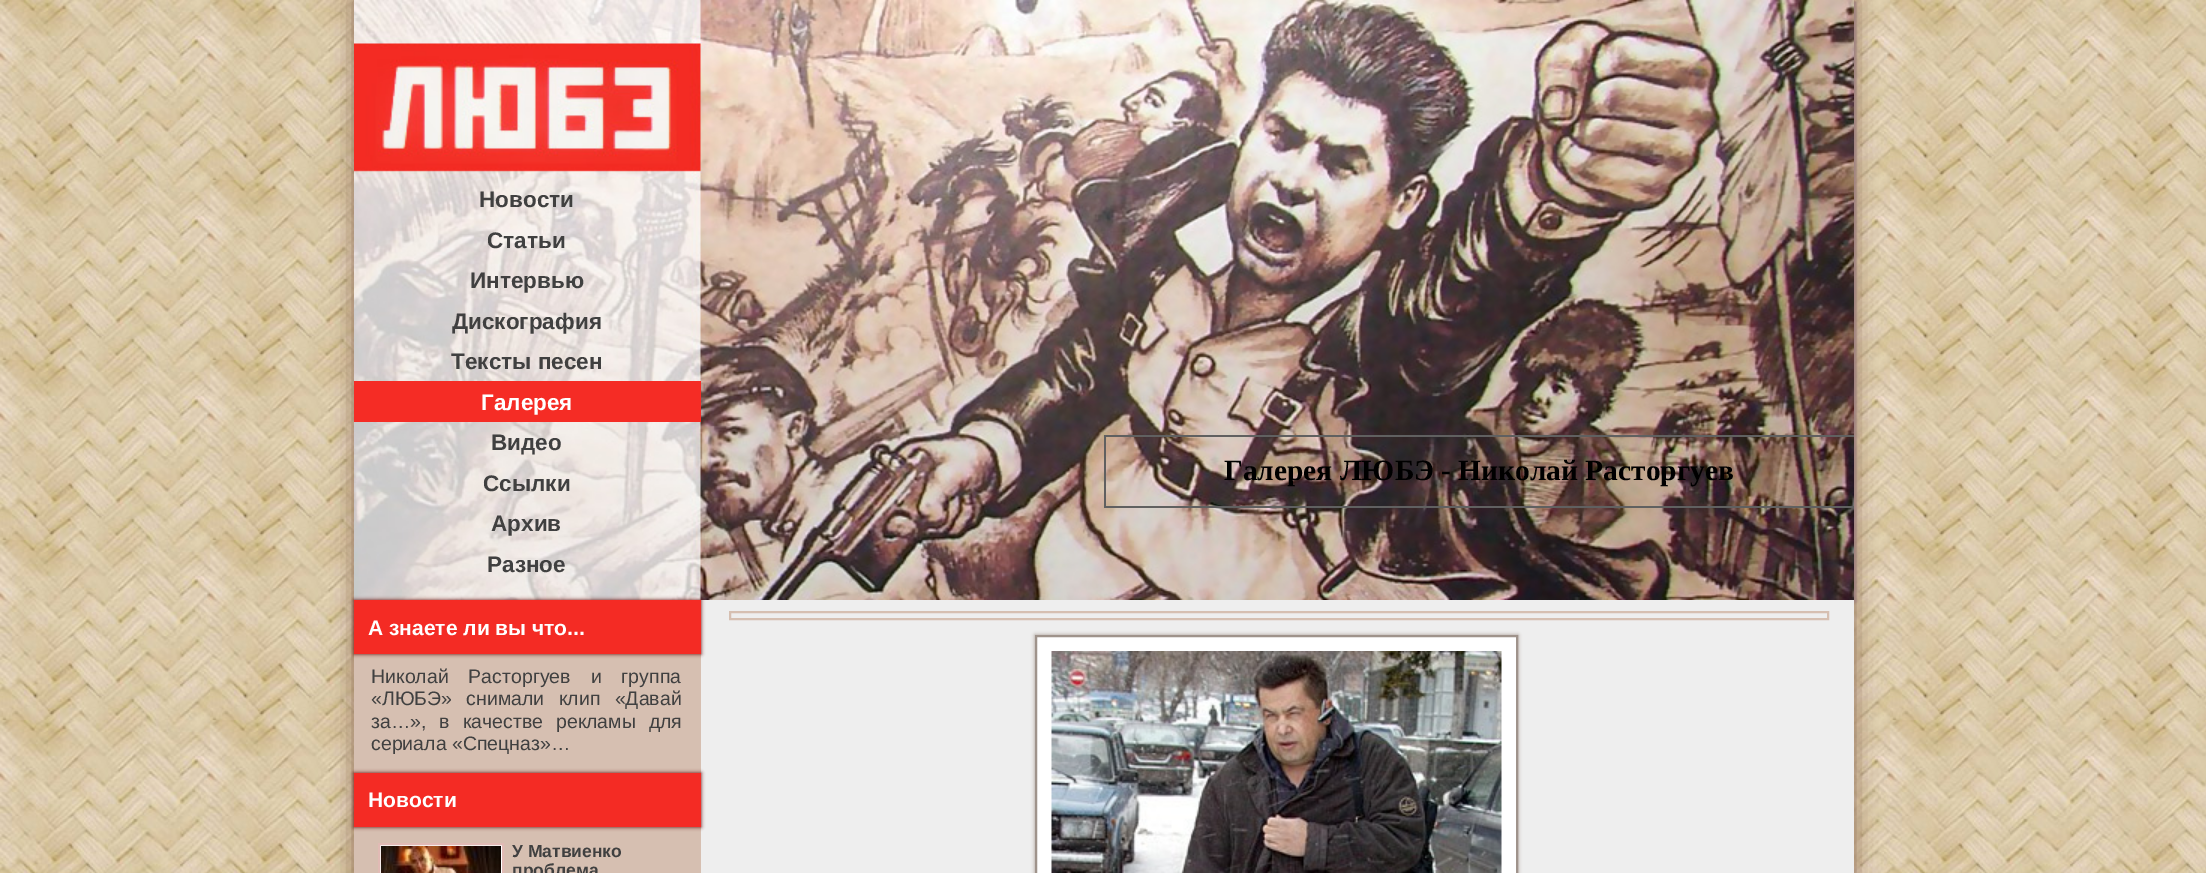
%!PS-Adobe-3.0
%%BoundingBox: 0 0 2206 873
%%LanguageLevel: 3
%%Pages: 1
%%EndComments
%%BeginProlog
/m { moveto } bind def
/l { lineto } bind def
/h { closepath } bind def
/f { fill } bind def
/S { stroke } bind def
/q { gsave } bind def
/Q { grestore } bind def
/w { setlinewidth } bind def
/fn { [ exch dup neg 0 0 3 -1 roll 0 0 ] selectfont } def
/tx { moveto show } def
/bx { rectfill } def
/al { dup .setfillconstantalpha .setstrokeconstantalpha } def
/rr { 5 dict begin { /r /h /w /y /x } { exch def } forall
  x r add y moveto x w add y 2 copy h add r arct x w add y h add x 1 index r arct
  x y h add x y r arct x y 2 copy exch w add exch r arct closepath end } def
/sh { 12 dict begin { /a /b /q /h /w /y /x } { exch def } forall gsave /was 0 def
  9 -2 -9 { dup b mul 4 div /e exch def 1 sub .425 mul 2.718 exch exp 1 add a .99 .min exch div /now exch def
    1 1 now sub 1 was sub div sub al /was now def
    w h .min e 2 mul add 0 gt { x e sub y e sub w e 2 mul add h e 2 mul add
      q e add b .6 mul add w h .min 2 div e add .min 0 .max rr fill } if } for grestore end } def
/im { 5 dict begin { /h /w /y /x /name } { exch def } forall
  gsave x y translate w h scale
  w h 8 [w 0 0 h 0 0] name (r) file false 3 colorimage grestore end } def
%%EndProlog
%%BeginSetup
<< /PageSize [2206 873] /PageUsesTransparency true >> setpagedevice
%%EndSetup
%%Page: 1 1
0 .pushpdf14devicefilter
0 873 translate 1 -1 scale
4 setmiterlimit
1 setgray
0 0 2206 873 bx
(image0.raw) 0 0 2206 873 im
0.557 0.42 0.333 setrgbcolor
354 0 1500 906 0 11 1 sh
0.624 0.506 0.51 setrgbcolor
356 2 1500 600 0 1.5 1 sh
(image1.raw) 354 0 1500 600 im
/LiberationSans-Bold 22.5 fn
0.251 setgray
(Новости) 479 207 tx
(Статьи) 487 248 tx
(Интервью) 470 288 tx
(Дискография) 452 329 tx
(Тексты песен) 451 369 tx
0.961 0.173 0.145 setrgbcolor
354 381 347 41 bx
1 setgray
(Галерея) 481 410 tx
0.251 setgray
(Видео) 491 450 tx
(Ссылки) 483 491 tx
(Архив) 491 531 tx
(Разное) 487 572 tx
0.376 setgray
1104 435 750 2 bx
1104 506 750 2 bx
1104 435 2 72 bx
/LiberationSerif-Bold 29.4 fn
0 setgray
(Галерея ЛЮБЭ - Николай Расторгуев) 1224 480 tx
0.933 setgray
701 600 1153 273 bx
0.839 0.749 0.694 setrgbcolor
354 654 347 219 bx
0.373 0.008 0 setrgbcolor
354 600 347 54 0 2 1 sh
0.957 0.169 0.141 setrgbcolor
354 600 347 54 bx
/LiberationSans-Bold 21 fn
1 setgray
(А знаете ли вы что...) 368 635 tx
/LiberationSans-Regular 19.5 fn
0.251 setgray
371 683 m 14.5 0 32 (Николай Расторгуев и группа) widthshow
371 705 m 9 0 32 («ЛЮБЭ» снимали клип «Давай) widthshow
371 728 m 7.5 0 32 (за…», в качестве рекламы для) widthshow
(сериала «Спецназ»…) 371 750 tx
0.373 0.008 0 setrgbcolor
354 773 347 54 0 2 1 sh
0.957 0.169 0.141 setrgbcolor
354 773 347 54 bx
/LiberationSans-Bold 21 fn
1 setgray
(Новости) 368 807 tx
379 844 m 503 844 l 503 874 l 379 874 l h q f Q
0.882 0.729 0.71 setrgbcolor
2 w
S
(image2.raw) 381 846 120 27 im
/LiberationSans-Bold 17.5 fn
0.251 setgray
(У Матвиенко) 512 857 tx
(проблема) 512 876 tx
0.839 0.749 0.694 setrgbcolor
730 612 1098 7 rectstroke
0.624 0.576 0.545 setrgbcolor
1035 635 483 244 0 2 1 sh
1 setgray
1036 636 m 1517 636 l 1517 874 l 1036 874 l h q f Q
0.624 0.576 0.545 setrgbcolor
S
(image3.raw) 1051 651 451 222 im
.poppdf14devicefilter showpage
%%EOF
